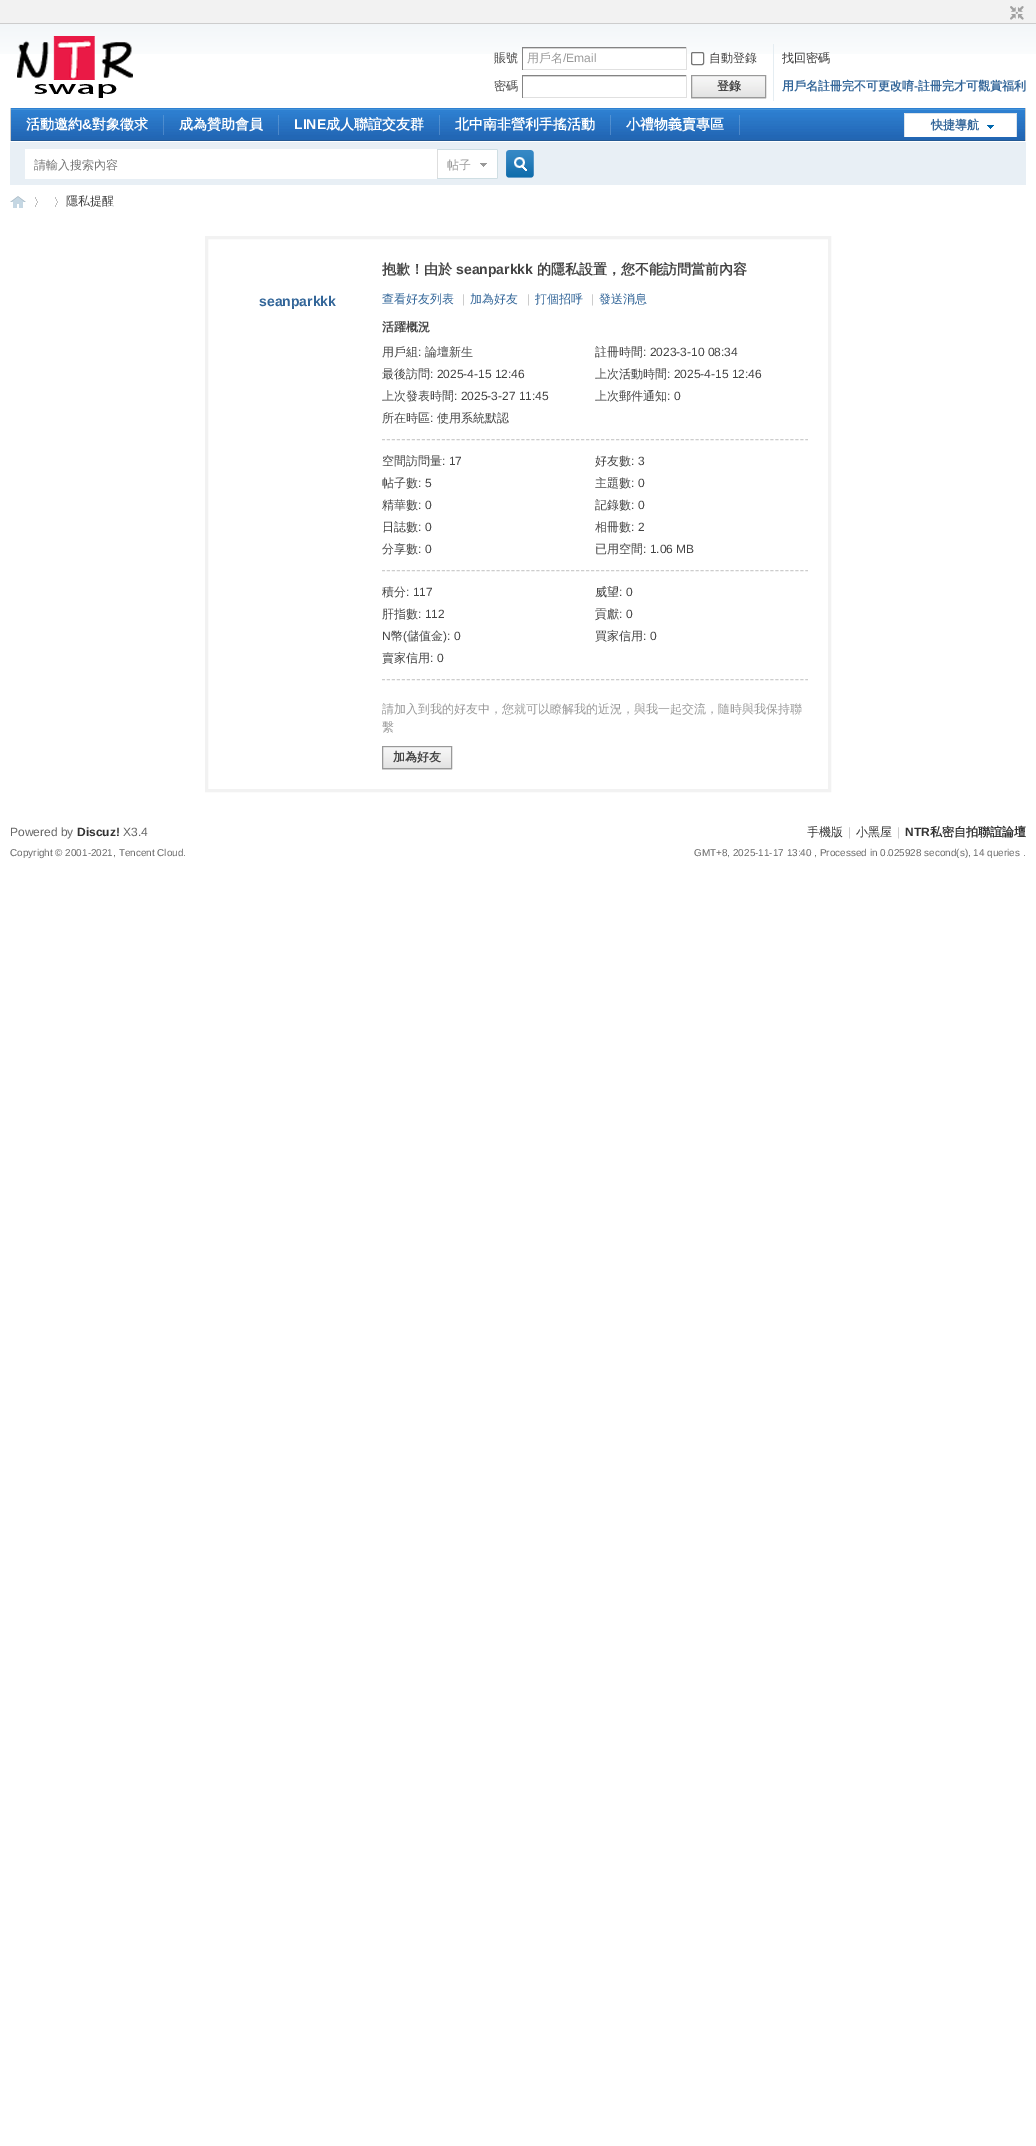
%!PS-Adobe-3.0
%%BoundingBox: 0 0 1036 2146
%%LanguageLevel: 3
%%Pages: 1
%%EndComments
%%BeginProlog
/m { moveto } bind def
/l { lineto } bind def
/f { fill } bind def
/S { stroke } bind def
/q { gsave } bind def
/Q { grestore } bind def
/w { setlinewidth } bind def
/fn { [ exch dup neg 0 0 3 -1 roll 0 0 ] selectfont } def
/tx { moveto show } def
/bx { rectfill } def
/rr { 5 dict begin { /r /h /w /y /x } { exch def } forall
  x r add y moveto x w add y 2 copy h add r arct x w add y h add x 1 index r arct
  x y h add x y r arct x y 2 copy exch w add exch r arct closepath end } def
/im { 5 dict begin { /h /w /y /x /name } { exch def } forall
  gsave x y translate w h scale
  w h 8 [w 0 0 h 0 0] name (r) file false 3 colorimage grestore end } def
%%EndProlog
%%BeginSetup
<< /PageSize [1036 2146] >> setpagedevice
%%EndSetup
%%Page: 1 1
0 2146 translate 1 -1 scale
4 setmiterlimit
1 setgray
0 0 1036 2146 bx
(image0.raw) 0 24 1036 30 im
0.949 setgray
0 0 1036 23 bx
0.804 setgray
0 23 1036 1 bx
(image1.raw) 1010 6 14 14 im
(image2.raw) 17 36 116 62 im
/WenQuanYiZenHei-Medium 12 fn
0.267 setgray
(賬號) 494 62 tx
1 setgray
523 49 163 5 bx
0.831 setgray
522 48 165 1 bx
0.518 setgray
522 47 165 1 bx
0.878 setgray
686 47 1 23 bx
522 69 165 1 bx
0.518 setgray
522 47 1 23 bx
0.6 setgray
(用戶名) 527 62 tx
/LiberationSans-Regular 12 fn
(/Email) 563 62 tx
1 setgray
691.5 52.5 12 12 1.5 rr q f Q
0.463 setgray
S
/WenQuanYiZenHei-Medium 12 fn
0.267 setgray
(自動登錄) 709 62 tx
0.2 setgray
(找回密碼) 782 62 tx
0.267 setgray
(密碼) 494 90 tx
0.831 setgray
522 76 165 1 bx
0.518 setgray
522 75 165 1 bx
0.878 setgray
686 75 1 23 bx
522 97 165 1 bx
0.518 setgray
522 75 1 23 bx
0.898 0.929 0.949 setrgbcolor
773 44 1 57 bx
0.898 setgray
691 98 75 1 bx
(image3.raw) 692 76 73 21 im
0.6 setgray
691.5 75.5 74 22 rectstroke
/WenQuanYiZenHei-Bold 12 fn
0.267 setgray
(登錄) 717 90 tx
0.2 0.4 0.6 setrgbcolor
(用戶名註冊完不可更改唷) 782 90 tx
/LiberationSans-Bold 12 fn
(-) 914 90 tx
/WenQuanYiZenHei-Bold 12 fn
(註冊完才可觀賞福利) 918 90 tx
(image4.raw) 11 108 1014 33 im
0.804 setgray
1025 108 1 33 bx
10 108 1 33 bx
(image5.raw) 163 115 1 20 im
/WenQuanYiZenHei-Bold 14 fn
1 setgray
(活動邀約) 26 129 tx
/LiberationSans-Bold 14 fn
(&) 82 129 tx
/WenQuanYiZenHei-Bold 14 fn
(對象徵求) 92 129 tx
(image6.raw) 278 115 1 20 im
(成為贊助會員) 179 129 tx
(image6.raw) 439 115 1 20 im
/LiberationSans-Bold 14 fn
(LINE) 294 129 tx
/WenQuanYiZenHei-Bold 14 fn
(成人聯誼交友群) 326 129 tx
(image6.raw) 610 115 1 20 im
(北中南非營利手搖活動) 455 129 tx
(image6.raw) 739 115 1 20 im
(小禮物義賣專區) 626 129 tx
(image7.raw) 904 113 113 24 im
/WenQuanYiZenHei-Bold 12 fn
0.2 0.4 0.6 setrgbcolor
(快捷導航) 931 129 tx
0.91 0.937 0.961 setrgbcolor
10 142 1016 43 bx
1 setgray
25 149 412 30 bx
(image8.raw) 506 150 28 28 im
/WenQuanYiZenHei-Medium 12 fn
0.459 setgray
(請輸入搜索內容) 34 169 tx
(image9.raw) 437 149 61 30 im
0.6 setgray
(帖子) 447 169 tx
(image10.raw) 10 196 16 12 im
(image11.raw) 35 197 3 10 im
(image11.raw) 55 197 3 10 im
0.267 setgray
(隱私提醒) 66 205 tx
0.949 setgray
3 w
206.5 237.5 623 553 rectstroke
/LiberationSans-Bold 14 fn
0.2 0.4 0.6 setrgbcolor
(seanparkkk) 259 306 tx
/WenQuanYiZenHei-Bold 14 fn
0.267 setgray
(抱歉！由於) 382 274 tx
/LiberationSans-Bold 14 fn
(seanparkkk) 456 274 tx
/WenQuanYiZenHei-Bold 14 fn
(的隱私設置，您不能訪問當前內容) 537 274 tx
/WenQuanYiZenHei-Medium 12 fn
0.2 0.4 0.6 setrgbcolor
(查看好友列表) 382 303 tx
/LiberationSans-Regular 12 fn
0.8 setgray
(|) 462 303 tx
/WenQuanYiZenHei-Medium 12 fn
0.2 0.4 0.6 setrgbcolor
(加為好友) 470 303 tx
/LiberationSans-Regular 12 fn
0.8 setgray
(|) 527 303 tx
/WenQuanYiZenHei-Medium 12 fn
0.2 0.4 0.6 setrgbcolor
(打個招呼) 535 303 tx
/LiberationSans-Regular 12 fn
0.8 setgray
(|) 591 303 tx
/WenQuanYiZenHei-Medium 12 fn
0.2 0.4 0.6 setrgbcolor
(發送消息) 599 303 tx
0.804 setgray
1 w
[3 1.98] 0 setdash
382 439.5 m 808 439.5 l S
/WenQuanYiZenHei-Bold 12 fn
0.267 setgray
(活躍概況) 382 331 tx
/WenQuanYiZenHei-Medium 12 fn
(用戶組) 382 356 tx
/LiberationSans-Regular 12 fn
(:) 418 356 tx
/WenQuanYiZenHei-Medium 12 fn
(論壇新生) 425 356 tx
(註冊時間) 595 356 tx
/LiberationSans-Regular 12 fn
(: 2023-3-10 08:34) 643 356 tx
/WenQuanYiZenHei-Medium 12 fn
(最後訪問) 382 378 tx
/LiberationSans-Regular 12 fn
(: 2025-4-15 12:46) 430 378 tx
/WenQuanYiZenHei-Medium 12 fn
(上次活動時間) 595 378 tx
/LiberationSans-Regular 12 fn
(: 2025-4-15 12:46) 667 378 tx
/WenQuanYiZenHei-Medium 12 fn
(上次發表時間) 382 400 tx
/LiberationSans-Regular 12 fn
(: 2025-3-27 11:45) 454 400 tx
/WenQuanYiZenHei-Medium 12 fn
(上次郵件通知) 595 400 tx
/LiberationSans-Regular 12 fn
(: 0) 667 400 tx
/WenQuanYiZenHei-Medium 12 fn
(所在時區) 382 422 tx
/LiberationSans-Regular 12 fn
(:) 430 422 tx
/WenQuanYiZenHei-Medium 12 fn
(使用系統默認) 437 422 tx
0.804 setgray
382 570.5 m 808 570.5 l S
0.267 setgray
(空間訪問量) 382 465 tx
/LiberationSans-Regular 12 fn
(: 17) 442 465 tx
/WenQuanYiZenHei-Medium 12 fn
(好友數) 595 465 tx
/LiberationSans-Regular 12 fn
(: 3) 631 465 tx
/WenQuanYiZenHei-Medium 12 fn
(帖子數) 382 487 tx
/LiberationSans-Regular 12 fn
(: 5) 418 487 tx
/WenQuanYiZenHei-Medium 12 fn
(主題數) 595 487 tx
/LiberationSans-Regular 12 fn
(: 0) 631 487 tx
/WenQuanYiZenHei-Medium 12 fn
(精華數) 382 509 tx
/LiberationSans-Regular 12 fn
(: 0) 418 509 tx
/WenQuanYiZenHei-Medium 12 fn
(記錄數) 595 509 tx
/LiberationSans-Regular 12 fn
(: 0) 631 509 tx
/WenQuanYiZenHei-Medium 12 fn
(日誌數) 382 531 tx
/LiberationSans-Regular 12 fn
(: 0) 418 531 tx
/WenQuanYiZenHei-Medium 12 fn
(相冊數) 595 531 tx
/LiberationSans-Regular 12 fn
(: 2) 631 531 tx
/WenQuanYiZenHei-Medium 12 fn
(分享數) 382 553 tx
/LiberationSans-Regular 12 fn
(: 0) 418 553 tx
/WenQuanYiZenHei-Medium 12 fn
(已用空間) 595 553 tx
/LiberationSans-Regular 12 fn
(: 1.06 MB) 643 553 tx
0.804 setgray
382 679.5 m 808 679.5 l S
/WenQuanYiZenHei-Medium 12 fn
0.267 setgray
(積分) 382 596 tx
/LiberationSans-Regular 12 fn
(: 117) 406 596 tx
/WenQuanYiZenHei-Medium 12 fn
(威望) 595 596 tx
/LiberationSans-Regular 12 fn
(: 0) 619 596 tx
/WenQuanYiZenHei-Medium 12 fn
(肝指數) 382 618 tx
/LiberationSans-Regular 12 fn
(: 112) 418 618 tx
/WenQuanYiZenHei-Medium 12 fn
(貢獻) 595 618 tx
/LiberationSans-Regular 12 fn
(: 0) 619 618 tx
(N) 382 640 tx
/WenQuanYiZenHei-Medium 12 fn
(幣) 391 640 tx
/LiberationSans-Regular 12 fn
(\() 403 640 tx
/WenQuanYiZenHei-Medium 12 fn
(儲值金) 407 640 tx
/LiberationSans-Regular 12 fn
(\): 0) 443 640 tx
/WenQuanYiZenHei-Medium 12 fn
(買家信用) 595 640 tx
/LiberationSans-Regular 12 fn
(: 0) 643 640 tx
/WenQuanYiZenHei-Medium 12 fn
(賣家信用) 382 662 tx
/LiberationSans-Regular 12 fn
(: 0) 430 662 tx
/WenQuanYiZenHei-Medium 12 fn
0.6 setgray
(請加入到我的好友中，您就可以瞭解我的近況，與我一起交流，隨時與我保持聯) 382 713 tx
(繫) 382 731 tx
0.898 setgray
382 769 70 1 bx
(image12.raw) 383 747 68 21 im
0.6 setgray
[] 0 setdash
382.5 746.5 69 22 rectstroke
/WenQuanYiZenHei-Bold 12 fn
0.267 setgray
(加為好友) 393 761 tx
/LiberationSans-Regular 12 fn
0.4 setgray
(Powered by) 10 836 tx
/LiberationSans-Bold 12 fn
0.2 setgray
(Discuz!) 77 836 tx
/LiberationSans-Regular 12 fn
0.4 setgray
(X3.4) 123 836 tx
/LiberationSans-Regular 9.95 fn
(Copyright © 2001-2021, Tencent Cloud.) 10 856 tx
/WenQuanYiZenHei-Medium 12 fn
0.2 setgray
(手機版) 807 836 tx
/LiberationSans-Regular 12 fn
0.8 setgray
(|) 848 836 tx
/WenQuanYiZenHei-Medium 12 fn
0.2 setgray
(小黑屋) 856 836 tx
/LiberationSans-Regular 12 fn
0.8 setgray
(|) 897 836 tx
/LiberationSans-Bold 12 fn
0.2 setgray
(NTR) 905 836 tx
/WenQuanYiZenHei-Bold 12 fn
(私密自拍聯誼論壇) 930 836 tx
/LiberationSans-Regular 9.95 fn
0.4 setgray
(GMT+8, 2025-11-17 13:40 , Processed in 0.025928 second\(s\), 14 queries .) 694 856 tx
showpage
%%EOF
